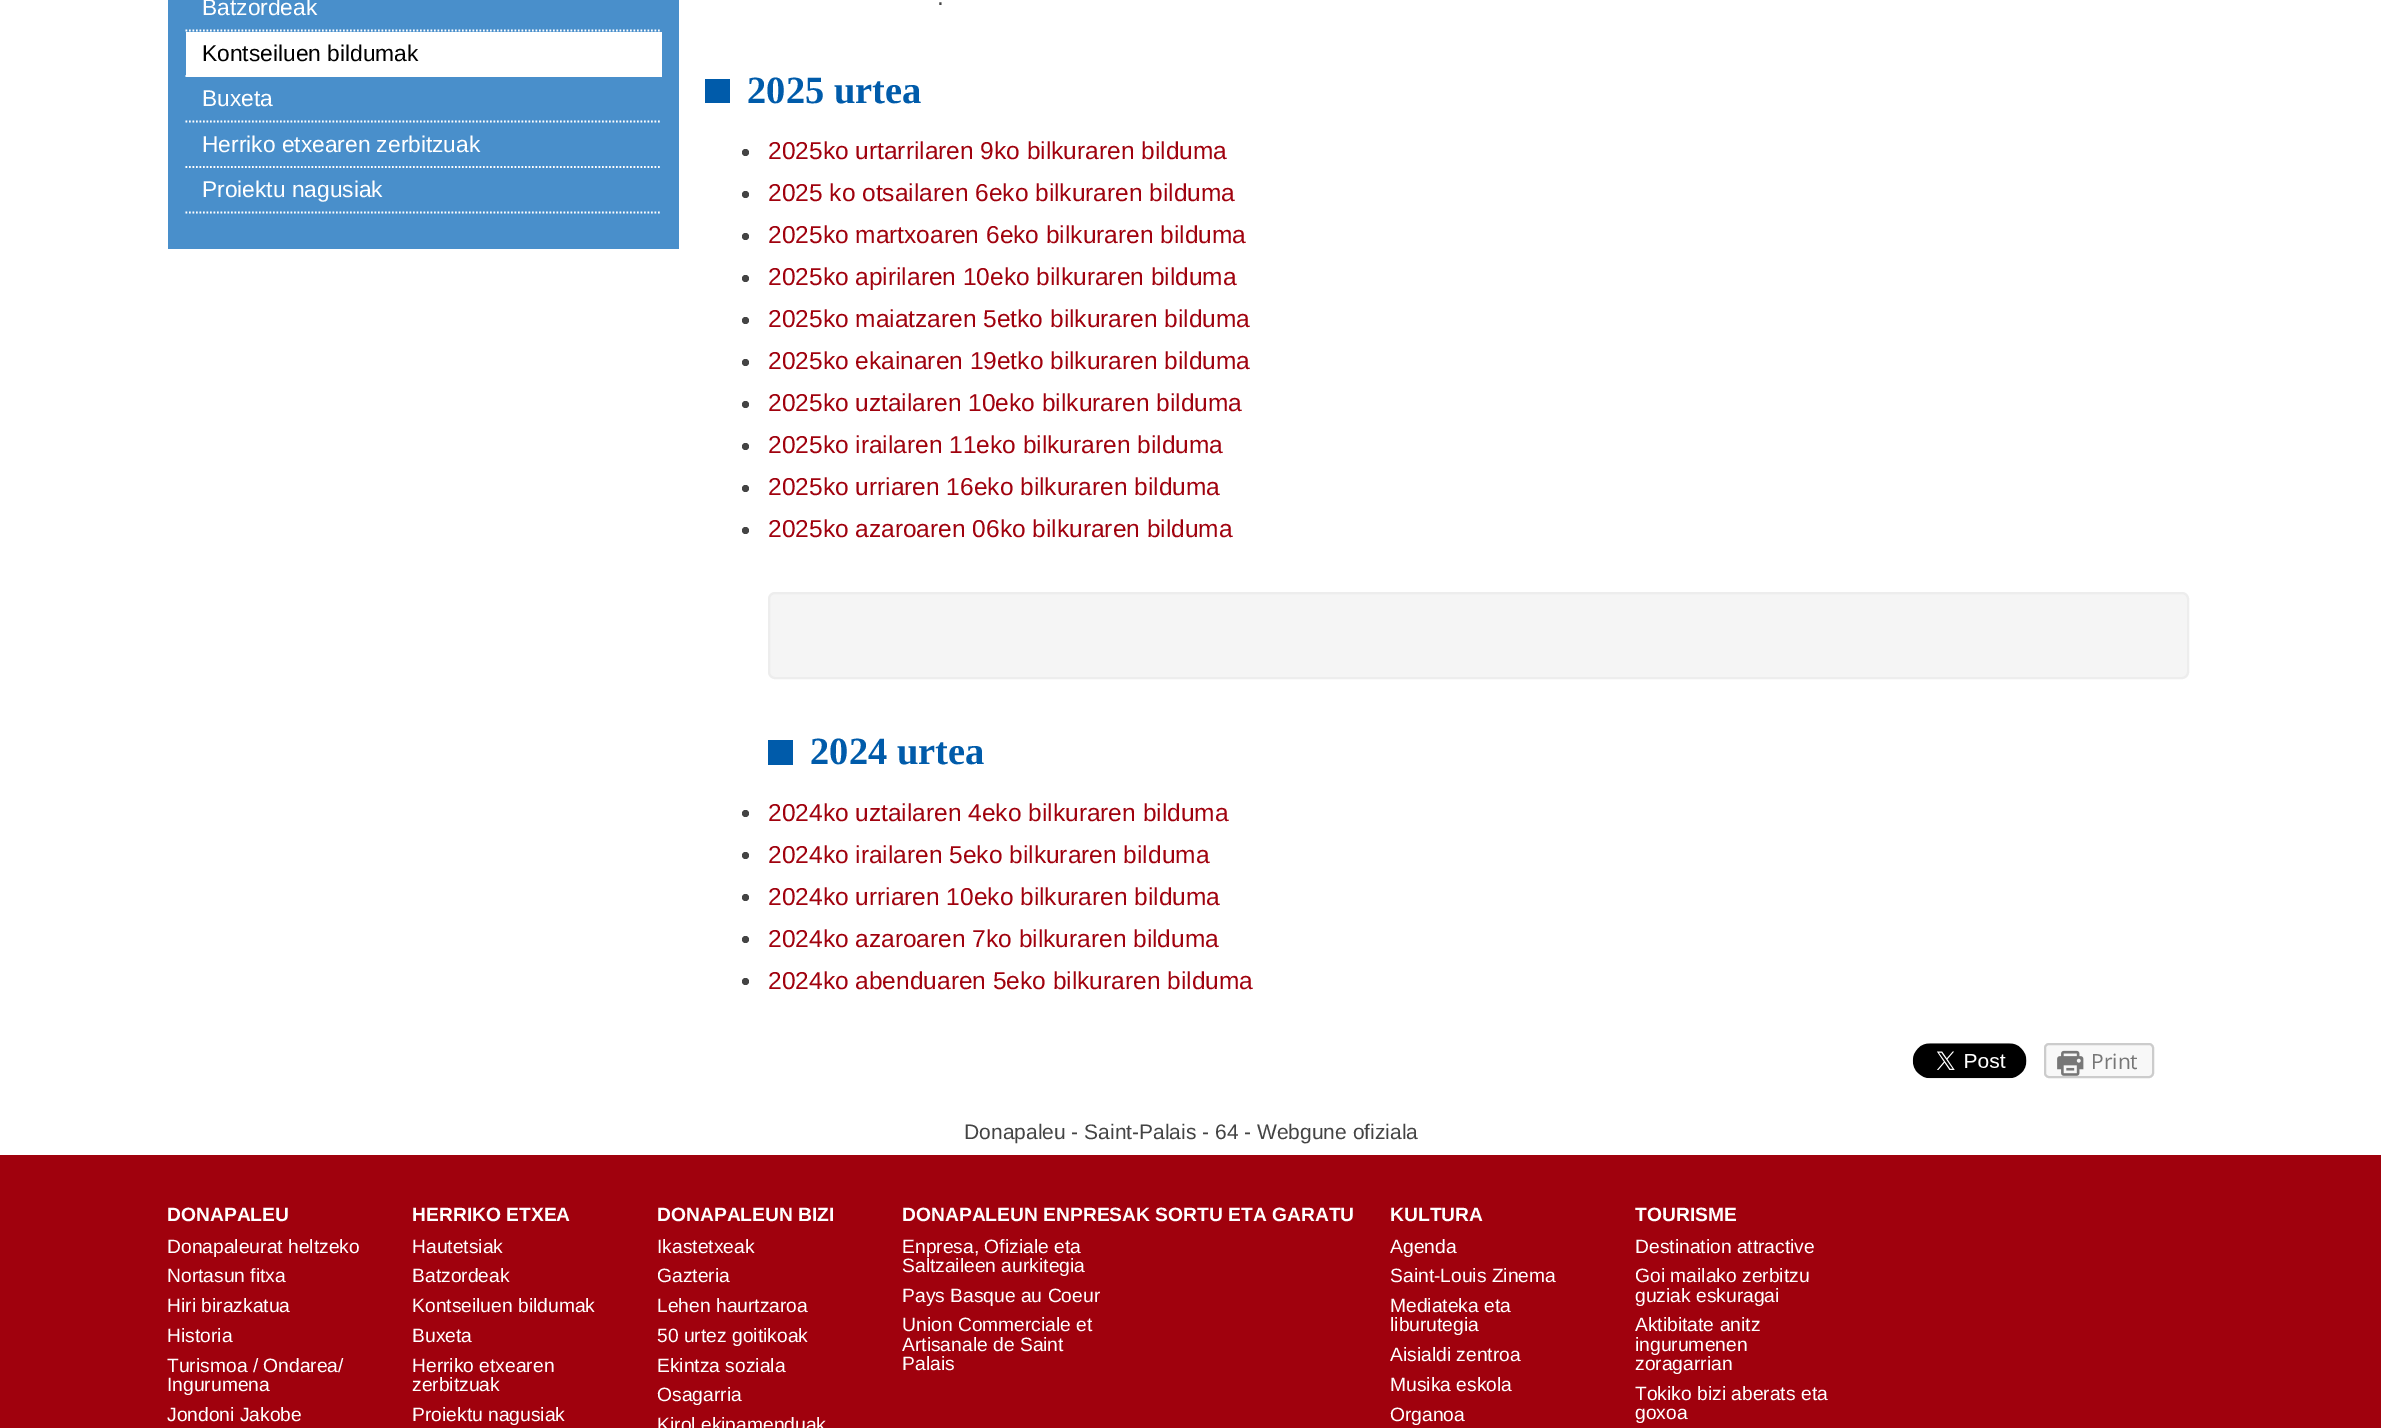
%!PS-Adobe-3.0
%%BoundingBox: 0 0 2381 1428
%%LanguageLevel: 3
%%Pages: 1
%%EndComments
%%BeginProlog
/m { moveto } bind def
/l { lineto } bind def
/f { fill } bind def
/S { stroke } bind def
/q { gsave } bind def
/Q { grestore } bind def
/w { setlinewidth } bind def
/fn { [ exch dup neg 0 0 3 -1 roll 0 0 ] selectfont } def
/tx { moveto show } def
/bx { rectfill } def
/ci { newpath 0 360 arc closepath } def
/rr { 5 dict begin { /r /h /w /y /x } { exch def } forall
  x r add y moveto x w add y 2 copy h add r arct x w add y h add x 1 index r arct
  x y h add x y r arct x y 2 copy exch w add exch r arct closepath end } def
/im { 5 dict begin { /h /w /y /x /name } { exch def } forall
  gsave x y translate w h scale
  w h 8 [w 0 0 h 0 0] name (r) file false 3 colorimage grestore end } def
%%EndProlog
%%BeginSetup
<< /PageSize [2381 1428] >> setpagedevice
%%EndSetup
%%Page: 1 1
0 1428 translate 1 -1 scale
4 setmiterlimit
1 setgray
0 0 2381 1428 bx
0.286 0.561 0.796 setrgbcolor
168 0 511 249 bx
1 setgray
1.8 w
[1.75 1.75] 0 setdash
185.5 30.5 m 661.5 30.5 l S
/LiberationSans-Regular 22.75 fn
(Batzordeak) 202 15 tx
186 32 476 45 bx
185.5 76 m 661.5 76 l S
0 setgray
(Kontseiluen bildumak) 202 61 tx
1 setgray
185.5 121.5 m 661.5 121.5 l S
(Buxeta) 202 106 tx
185.5 167 m 661.5 167 l S
(Herriko etxearen zerbitzuak) 202 152 tx
185.5 212.5 m 661.5 212.5 l S
(Proiektu nagusiak) 202 197 tx
/LiberationSans-Regular 24.5 fn
0.267 setgray
(.) 937 5 tx
0 0.357 0.667 setrgbcolor
705 79 25 24 bx
/LiberationSerif-Bold 38.5 fn
(2025 urtea) 747 103 tx
0.267 setgray
745.5 152.5 3.5 ci f
/LiberationSans-Regular 24.5 fn
0.627 0.004 0.051 setrgbcolor
(2025ko urtarrilaren 9ko bilkuraren bilduma) 768 159 tx
0.267 setgray
745.5 194.5 3.5 ci f
0.627 0.004 0.051 setrgbcolor
(2025 ko otsailaren 6eko bilkuraren bilduma) 768 201 tx
0.267 setgray
745.5 236.5 3.5 ci f
0.627 0.004 0.051 setrgbcolor
(2025ko martxoaren 6eko bilkuraren bilduma) 768 243 tx
0.267 setgray
745.5 278.5 3.5 ci f
0.627 0.004 0.051 setrgbcolor
(2025ko apirilaren 10eko bilkuraren bilduma) 768 285 tx
0.267 setgray
745.5 320.5 3.5 ci f
0.627 0.004 0.051 setrgbcolor
(2025ko maiatzaren 5etko bilkuraren bilduma) 768 327 tx
0.267 setgray
745.5 362.5 3.5 ci f
0.627 0.004 0.051 setrgbcolor
(2025ko ekainaren 19etko bilkuraren bilduma) 768 369 tx
0.267 setgray
745.5 404.5 3.5 ci f
0.627 0.004 0.051 setrgbcolor
(2025ko uztailaren 10eko bilkuraren bilduma) 768 411 tx
0.267 setgray
745.5 446.5 3.5 ci f
0.627 0.004 0.051 setrgbcolor
(2025ko irailaren 11eko bilkuraren bilduma) 768 453 tx
0.267 setgray
745.5 488.5 3.5 ci f
0.627 0.004 0.051 setrgbcolor
(2025ko urriaren 16eko bilkuraren bilduma) 768 495 tx
0.267 setgray
745.5 530.5 3.5 ci f
0.627 0.004 0.051 setrgbcolor
(2025ko azaroaren 06ko bilkuraren bilduma) 768 537 tx
0.961 setgray
769 593 1419 85 6 rr q f Q
0.929 setgray
2 w
[] 0 setdash
S
0 0.357 0.667 setrgbcolor
768 740 25 25 bx
/LiberationSerif-Bold 38.5 fn
(2024 urtea) 810 764 tx
0.267 setgray
745.5 813.5 3.5 ci f
/LiberationSans-Regular 24.5 fn
0.627 0.004 0.051 setrgbcolor
(2024ko uztailaren 4eko bilkuraren bilduma) 768 821 tx
0.267 setgray
745.5 855.5 3.5 ci f
0.627 0.004 0.051 setrgbcolor
(2024ko irailaren 5eko bilkuraren bilduma) 768 863 tx
0.267 setgray
745.5 897.5 3.5 ci f
0.627 0.004 0.051 setrgbcolor
(2024ko urriaren 10eko bilkuraren bilduma) 768 905 tx
0.267 setgray
745.5 939.5 3.5 ci f
0.627 0.004 0.051 setrgbcolor
(2024ko azaroaren 7ko bilkuraren bilduma) 768 947 tx
0.267 setgray
745.5 981.5 3.5 ci f
0.627 0.004 0.051 setrgbcolor
(2024ko abenduaren 5eko bilkuraren bilduma) 768 989 tx
(image0.raw) 1912 1043 115 36 im
0.973 setgray
2045 1044 108 33 4 rr q f Q
0.8 setgray
S
(image1.raw) 2057 1050 27 26 im
/OpenSans-Regular 21 fn
0.467 setgray
(Print) 2091 1069 tx
0.627 0.004 0.051 setrgbcolor
0 1155 2381 273 bx
/LiberationSans-Regular 21 fn
0.267 setgray
(Donapaleu - Saint-Palais - 64 - Webgune ofiziala) 964 1139 tx
/LiberationSans-Bold 19.25 fn
1 setgray
(DONAPALEU) 167 1221 tx
/LiberationSans-Regular 19.25 fn
(Donapaleurat heltzeko) 167 1253 tx
(Nortasun fitxa) 167 1282 tx
(Hiri birazkatua) 167 1312 tx
(Historia) 167 1342 tx
(Turismoa / Ondarea/) 167 1372 tx
(Ingurumena) 167 1391 tx
(Jondoni Jakobe) 167 1421 tx
/LiberationSans-Bold 19.25 fn
(HERRIKO ETXEA) 412 1221 tx
/LiberationSans-Regular 19.25 fn
(Hautetsiak) 412 1253 tx
(Batzordeak) 412 1282 tx
(Kontseiluen bildumak) 412 1312 tx
(Buxeta) 412 1342 tx
(Herriko etxearen) 412 1372 tx
(zerbitzuak) 412 1391 tx
(Proiektu nagusiak) 412 1421 tx
/LiberationSans-Bold 19.25 fn
(DONAPALEUN BIZI) 657 1221 tx
/LiberationSans-Regular 19.25 fn
(Ikastetxeak) 657 1253 tx
(Gazteria) 657 1282 tx
(Lehen haurtzaroa) 657 1312 tx
(50 urtez goitikoak) 657 1342 tx
(Ekintza soziala) 657 1372 tx
(Osagarria) 657 1401 tx
(Kirol ekipamenduak) 657 1431 tx
/LiberationSans-Bold 19.25 fn
(DONAPALEUN ENPRESAK SORTU ETA GARATU) 902 1221 tx
/LiberationSans-Regular 19.25 fn
(Enpresa, Ofiziale eta) 902 1253 tx
(Saltzaileen aurkitegia) 902 1272 tx
(Pays Basque au Coeur) 902 1302 tx
(Union Commerciale et) 902 1331 tx
(Artisanale de Saint) 902 1351 tx
(Palais) 902 1370 tx
/LiberationSans-Bold 19.25 fn
(KULTURA) 1390 1221 tx
/LiberationSans-Regular 19.25 fn
(Agenda) 1390 1253 tx
(Saint-Louis Zinema) 1390 1282 tx
(Mediateka eta) 1390 1312 tx
(liburutegia) 1390 1331 tx
(Aisialdi zentroa) 1390 1361 tx
(Musika eskola) 1390 1391 tx
(Organoa) 1390 1421 tx
/LiberationSans-Bold 19.25 fn
(TOURISME) 1635 1221 tx
/LiberationSans-Regular 19.25 fn
(Destination attractive) 1635 1253 tx
(Goi mailako zerbitzu) 1635 1282 tx
(guziak eskuragai) 1635 1302 tx
(Aktibitate anitz) 1635 1331 tx
(ingurumenen) 1635 1351 tx
(zoragarrian) 1635 1370 tx
(Tokiko bizi aberats eta) 1635 1400 tx
(goxoa) 1635 1419 tx
showpage
%%EOF
